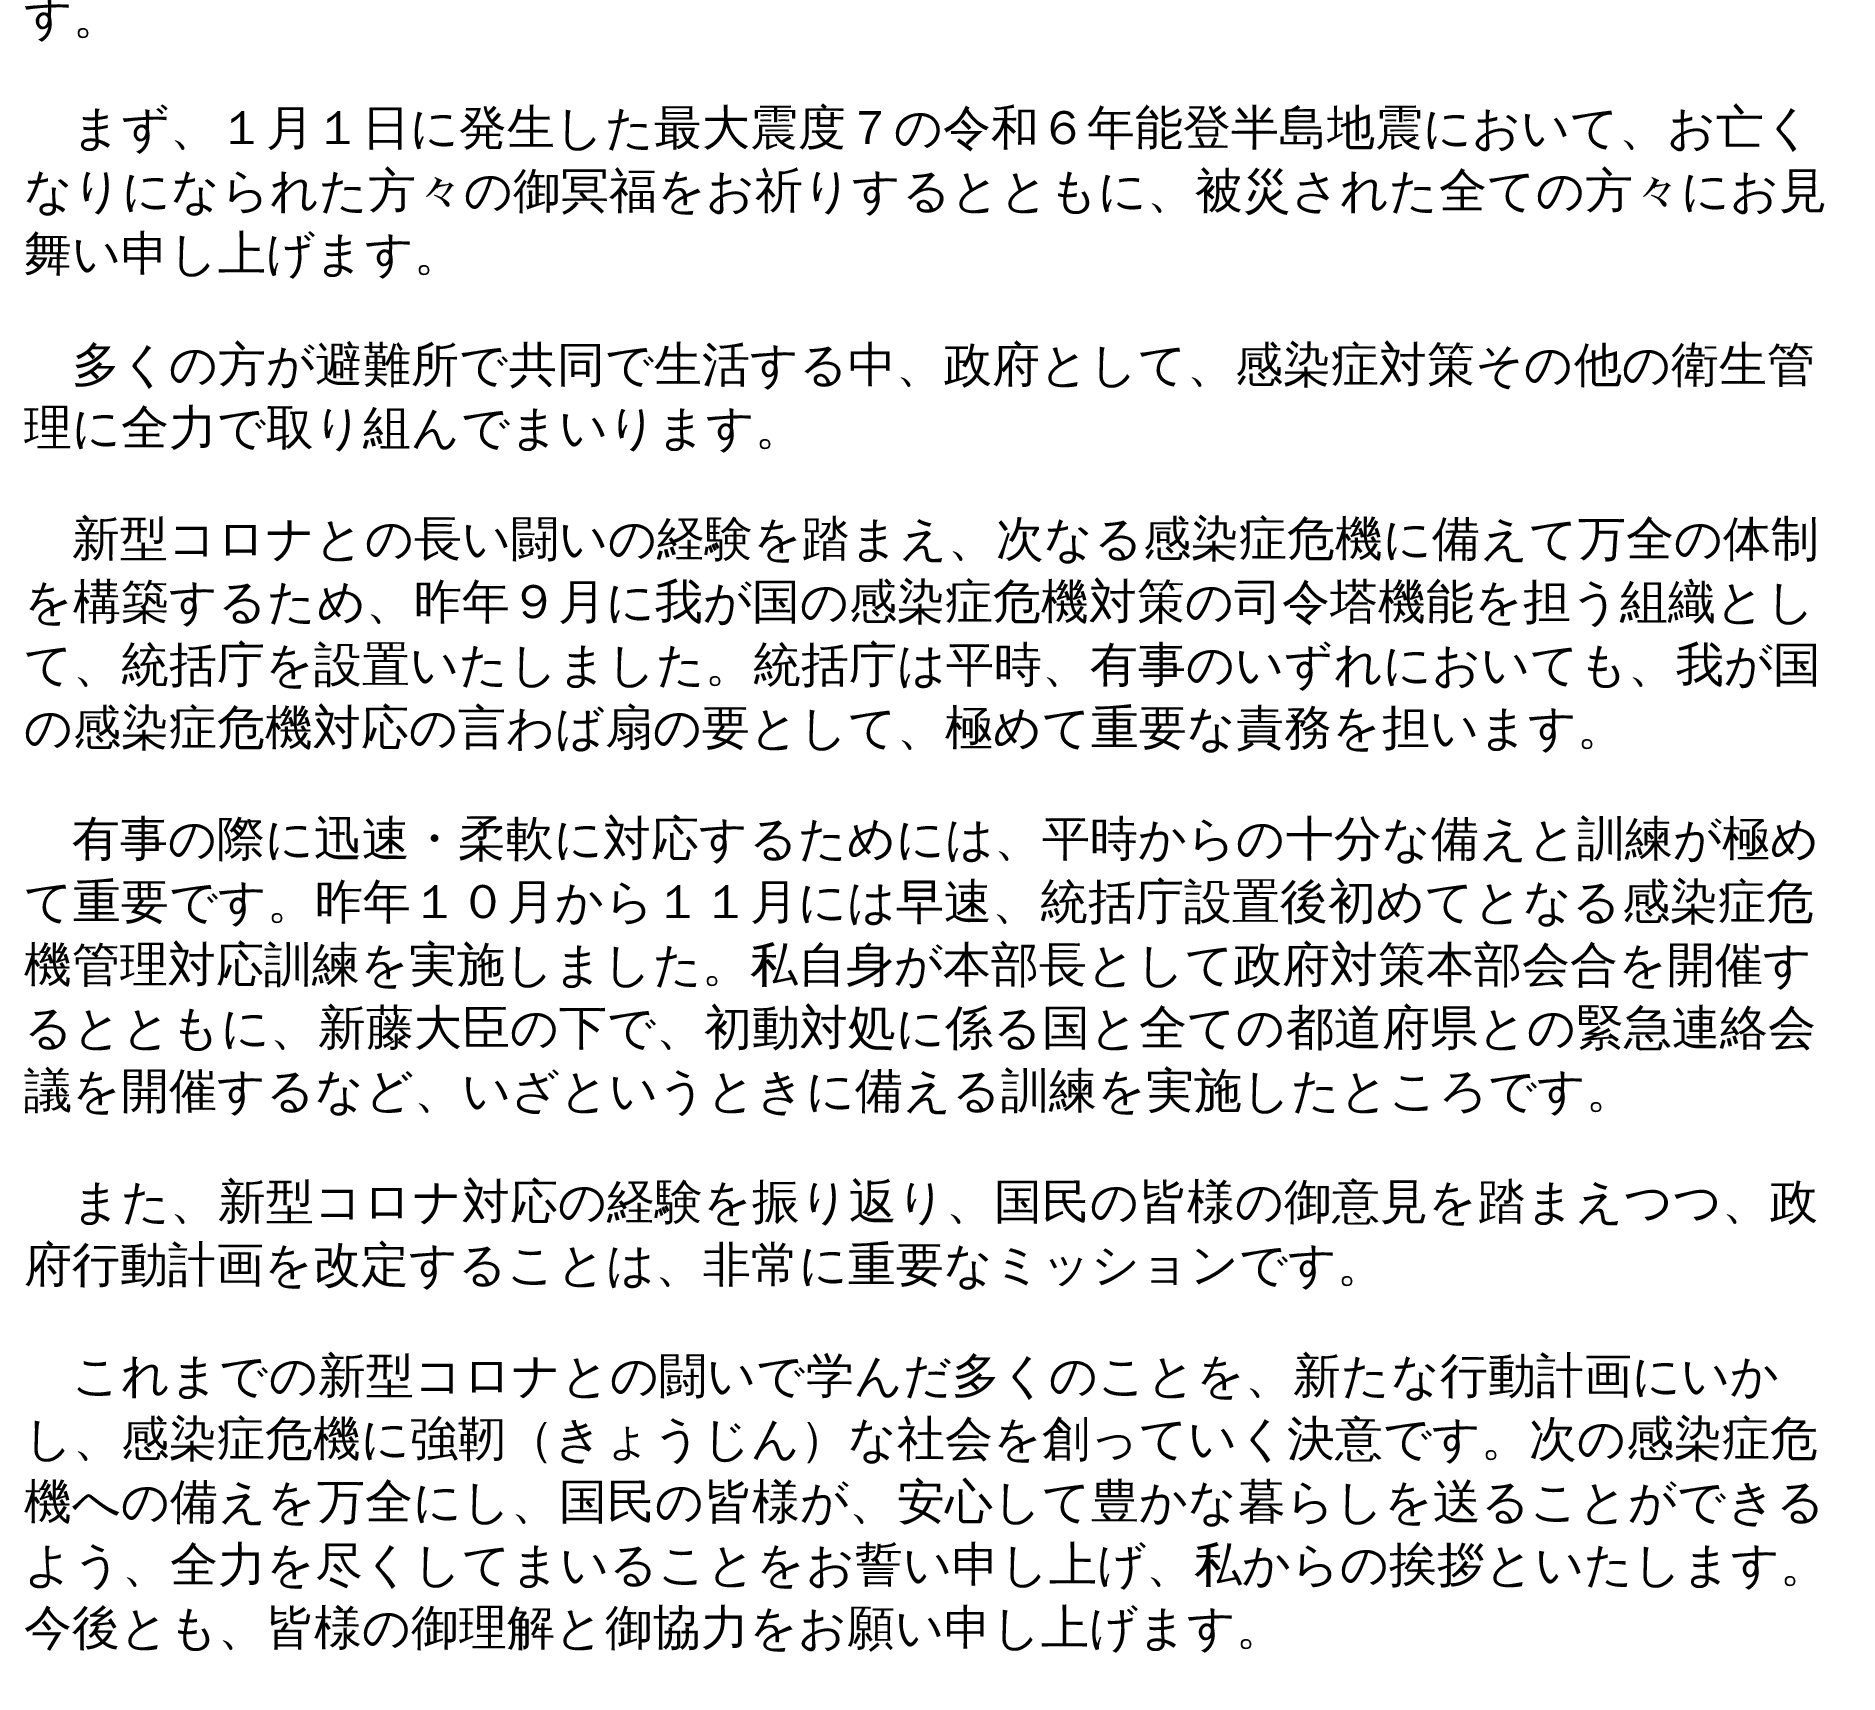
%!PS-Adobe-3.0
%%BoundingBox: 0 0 1875 1710
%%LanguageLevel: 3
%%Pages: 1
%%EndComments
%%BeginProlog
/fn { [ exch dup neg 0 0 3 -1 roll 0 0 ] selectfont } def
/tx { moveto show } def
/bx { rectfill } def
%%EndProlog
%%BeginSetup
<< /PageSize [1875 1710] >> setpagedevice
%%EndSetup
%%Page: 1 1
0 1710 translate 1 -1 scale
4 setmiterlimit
1 setgray
0 0 1875 1710 bx
/WenQuanYiZenHei-Medium 48 fn
0 setgray
(す。) 24 33 tx
(まず、１月１日に発生した最大震度７の令和６年能登半島地震において、お亡く) 72 144 tx
(なりになられた方々の御冥福をお祈りするとともに、被災された全ての方々にお見) 24 207 tx
(舞い申し上げます。) 24 270 tx
(多くの方が避難所で共同で生活する中、政府として、感染症対策その他の衛生管) 72 381 tx
(理に全力で取り組んでまいります。) 24 444 tx
(新型コロナとの長い闘いの経験を踏まえ、次なる感染症危機に備えて万全の体制) 72 555 tx
(を構築するため、昨年９月に我が国の感染症危機対策の司令塔機能を担う組織とし) 24 618 tx
(て、統括庁を設置いたしました。統括庁は平時、有事のいずれにおいても、我が国) 24 681 tx
(の感染症危機対応の言わば扇の要として、極めて重要な責務を担います。) 24 744 tx
(有事の際に迅速・柔軟に対応するためには、平時からの十分な備えと訓練が極め) 72 855 tx
(て重要です。昨年１０月から１１月には早速、統括庁設置後初めてとなる感染症危) 24 918 tx
(機管理対応訓練を実施しました。私自身が本部長として政府対策本部会合を開催す) 24 981 tx
(るとともに、新藤大臣の下で、初動対処に係る国と全ての都道府県との緊急連絡会) 24 1044 tx
(議を開催するなど、いざというときに備える訓練を実施したところです。) 24 1107 tx
(また、新型コロナ対応の経験を振り返り、国民の皆様の御意見を踏まえつつ、政) 72 1218 tx
(府行動計画を改定することは、非常に重要なミッションです。) 24 1281 tx
(これまでの新型コロナとの闘いで学んだ多くのことを、新たな行動計画にいか) 72 1392 tx
(し、感染症危機に強靭（きょうじん）な社会を創っていく決意です。次の感染症危) 24 1455 tx
(機への備えを万全にし、国民の皆様が、安心して豊かな暮らしを送ることができる) 24 1518 tx
(よう、全力を尽くしてまいることをお誓い申し上げ、私からの挨拶といたします。) 24 1581 tx
(今後とも、皆様の御理解と御協力をお願い申し上げます。) 24 1644 tx
showpage
%%EOF
